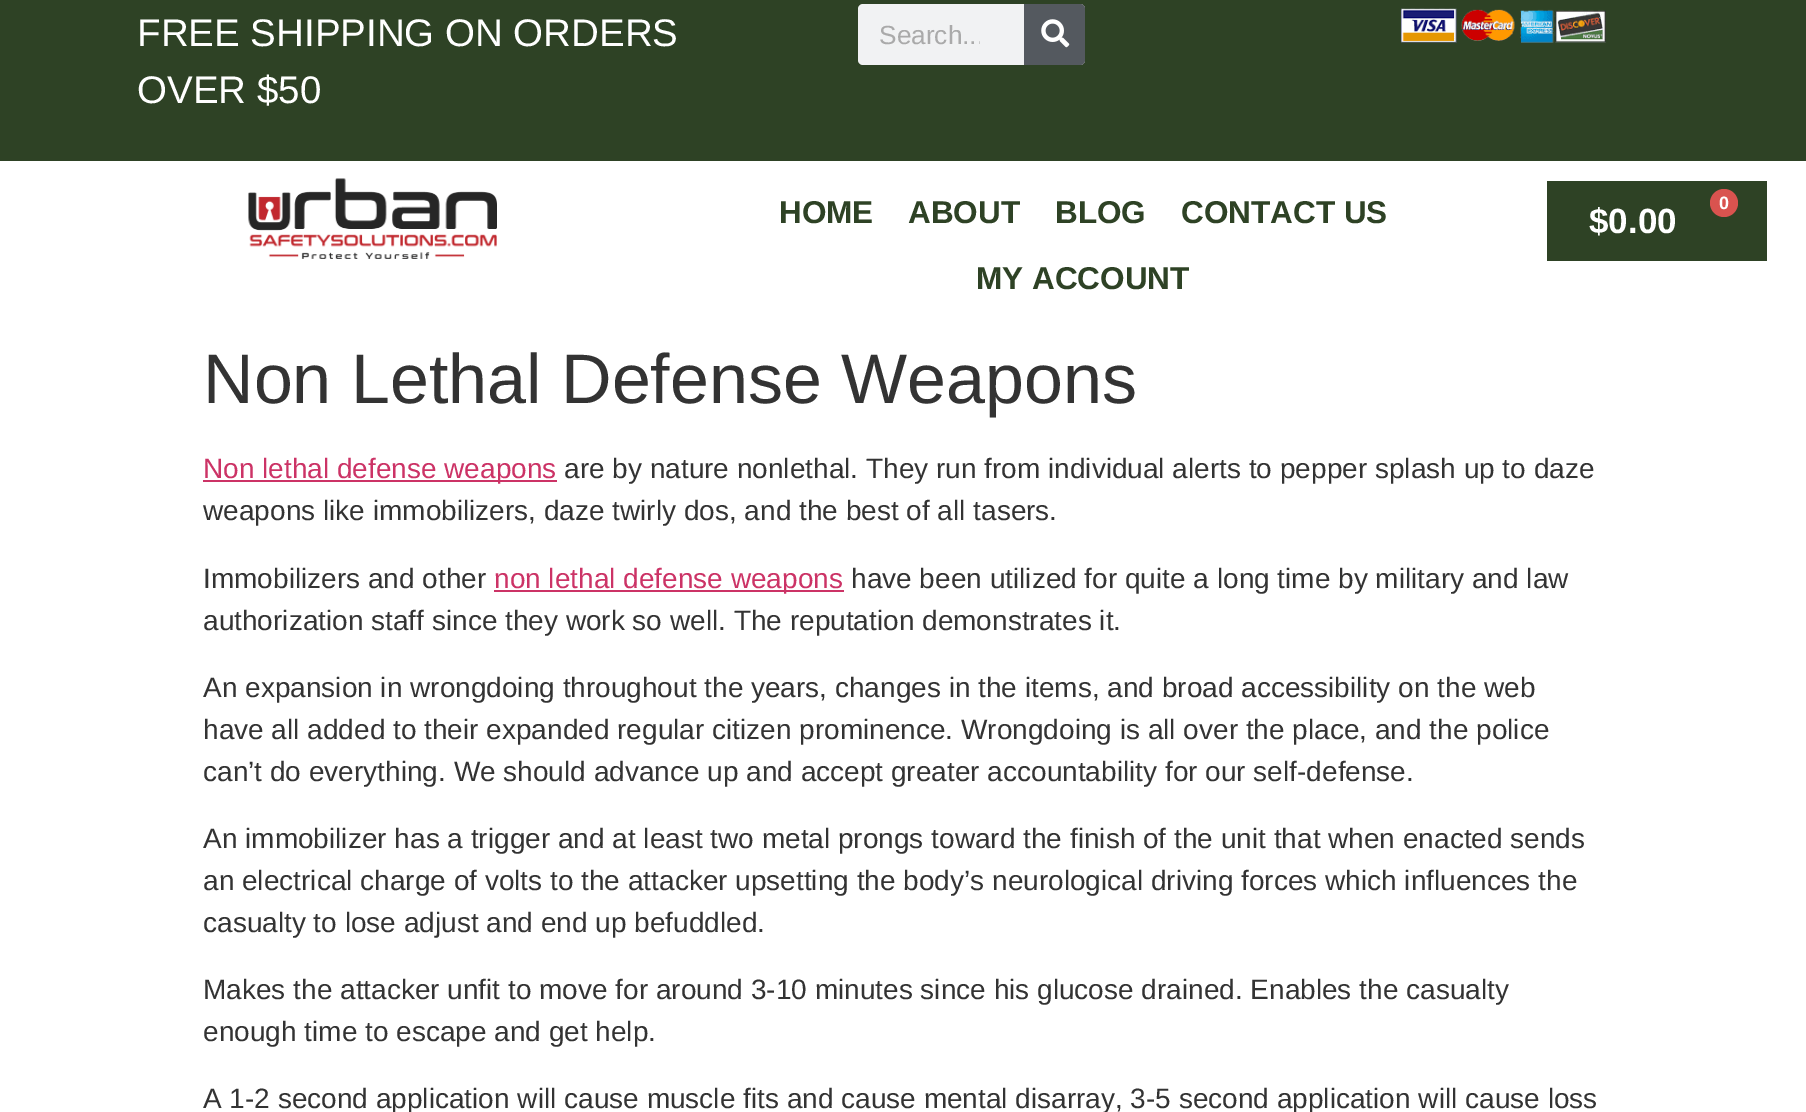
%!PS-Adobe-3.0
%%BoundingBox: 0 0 1806 1112
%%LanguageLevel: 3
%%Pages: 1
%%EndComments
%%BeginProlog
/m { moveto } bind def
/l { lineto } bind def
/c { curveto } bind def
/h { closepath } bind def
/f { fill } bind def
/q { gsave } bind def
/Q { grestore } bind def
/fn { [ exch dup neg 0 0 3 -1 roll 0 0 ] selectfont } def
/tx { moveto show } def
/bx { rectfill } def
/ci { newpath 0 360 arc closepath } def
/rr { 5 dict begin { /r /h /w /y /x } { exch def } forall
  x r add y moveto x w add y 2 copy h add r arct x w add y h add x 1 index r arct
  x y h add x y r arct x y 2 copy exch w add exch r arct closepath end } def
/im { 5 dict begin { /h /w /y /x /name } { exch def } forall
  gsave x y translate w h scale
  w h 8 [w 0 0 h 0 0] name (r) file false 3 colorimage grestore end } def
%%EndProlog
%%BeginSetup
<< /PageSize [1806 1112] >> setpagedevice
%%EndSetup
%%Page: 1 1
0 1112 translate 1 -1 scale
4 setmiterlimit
1 setgray
0 0 1806 1112 bx
0.18 0.259 0.145 setrgbcolor
0 0 1806 161 bx
/LiberationSans-Regular 38.5 fn
1 setgray
(FREE SHIPPING ON ORDERS) 137 46 tx
(OVER $50) 137 103 tx
0.945 0.949 0.953 setrgbcolor
858 4 227 61 5 rr f
q
879 19 101 30 rectclip
/LiberationSans-Regular 26.25 fn
0.667 setgray
(Search...) 879 44 tx
Q
0.329 0.349 0.373 setrgbcolor
1024 4 m 1080 4 l 1083 4 1085 6 1085 9 c 1085 60 l 1085 63 1083 65 1080 65 c 1024 65 l h f
(image0.raw) 1041 19 29 29 im
(image1.raw) 1401 8 205 35 im
(image2.raw) 248 178 249 81 im
/LiberationSans-Bold 31.5 fn
0.18 0.259 0.145 setrgbcolor
(HOME) 779 223 tx
(ABOUT) 908 223 tx
(BLOG) 1055 223 tx
(CONTACT US) 1181 223 tx
(MY ACCOUNT) 976 289 tx
1547 181 220 80 bx
0.851 0.325 0.31 setrgbcolor
1724 203 14 ci f
/LiberationSans-Bold 18 fn
1 setgray
(0) 1719 209 tx
/LiberationSans-Bold 35 fn
($0.00) 1589 233 tx
/LiberationSans-Regular 70 fn
0.2 setgray
(Non Lethal Defense Weapons) 203 403 tx
0.8 0.2 0.4 setrgbcolor
203 480 354 2 bx
/LiberationSans-Regular 28 fn
(Non lethal defense weapons) 203 478 tx
0.2 setgray
(are by nature nonlethal. They run from individual alerts to pepper splash up to daze) 564 478 tx
(weapons like immobilizers, daze twirly dos, and the best of all tasers.) 203 520 tx
(Immobilizers and other) 203 588 tx
0.8 0.2 0.4 setrgbcolor
494 590 350 2 bx
(non lethal defense weapons) 494 588 tx
0.2 setgray
(have been utilized for quite a long time by military and law) 851 588 tx
(authorization staff since they work so well. The reputation demonstrates it.) 203 630 tx
(An expansion in wrongdoing throughout the years, changes in the items, and broad accessibility on the web) 203 697 tx
(have all added to their expanded regular citizen prominence. Wrongdoing is all over the place, and the police) 203 739 tx
(can’t do everything. We should advance up and accept greater accountability for our self-defense.) 203 781 tx
(An immobilizer has a trigger and at least two metal prongs toward the finish of the unit that when enacted sends) 203 848 tx
(an electrical charge of volts to the attacker upsetting the body’s neurological driving forces which influences the) 203 890 tx
(casualty to lose adjust and end up befuddled.) 203 932 tx
(Makes the attacker unfit to move for around 3-10 minutes since his glucose drained. Enables the casualty) 203 999 tx
(enough time to escape and get help.) 203 1041 tx
(A 1-2 second application will cause muscle fits and cause mental disarray, 3-5 second application will cause loss) 203 1108 tx
showpage
%%EOF
